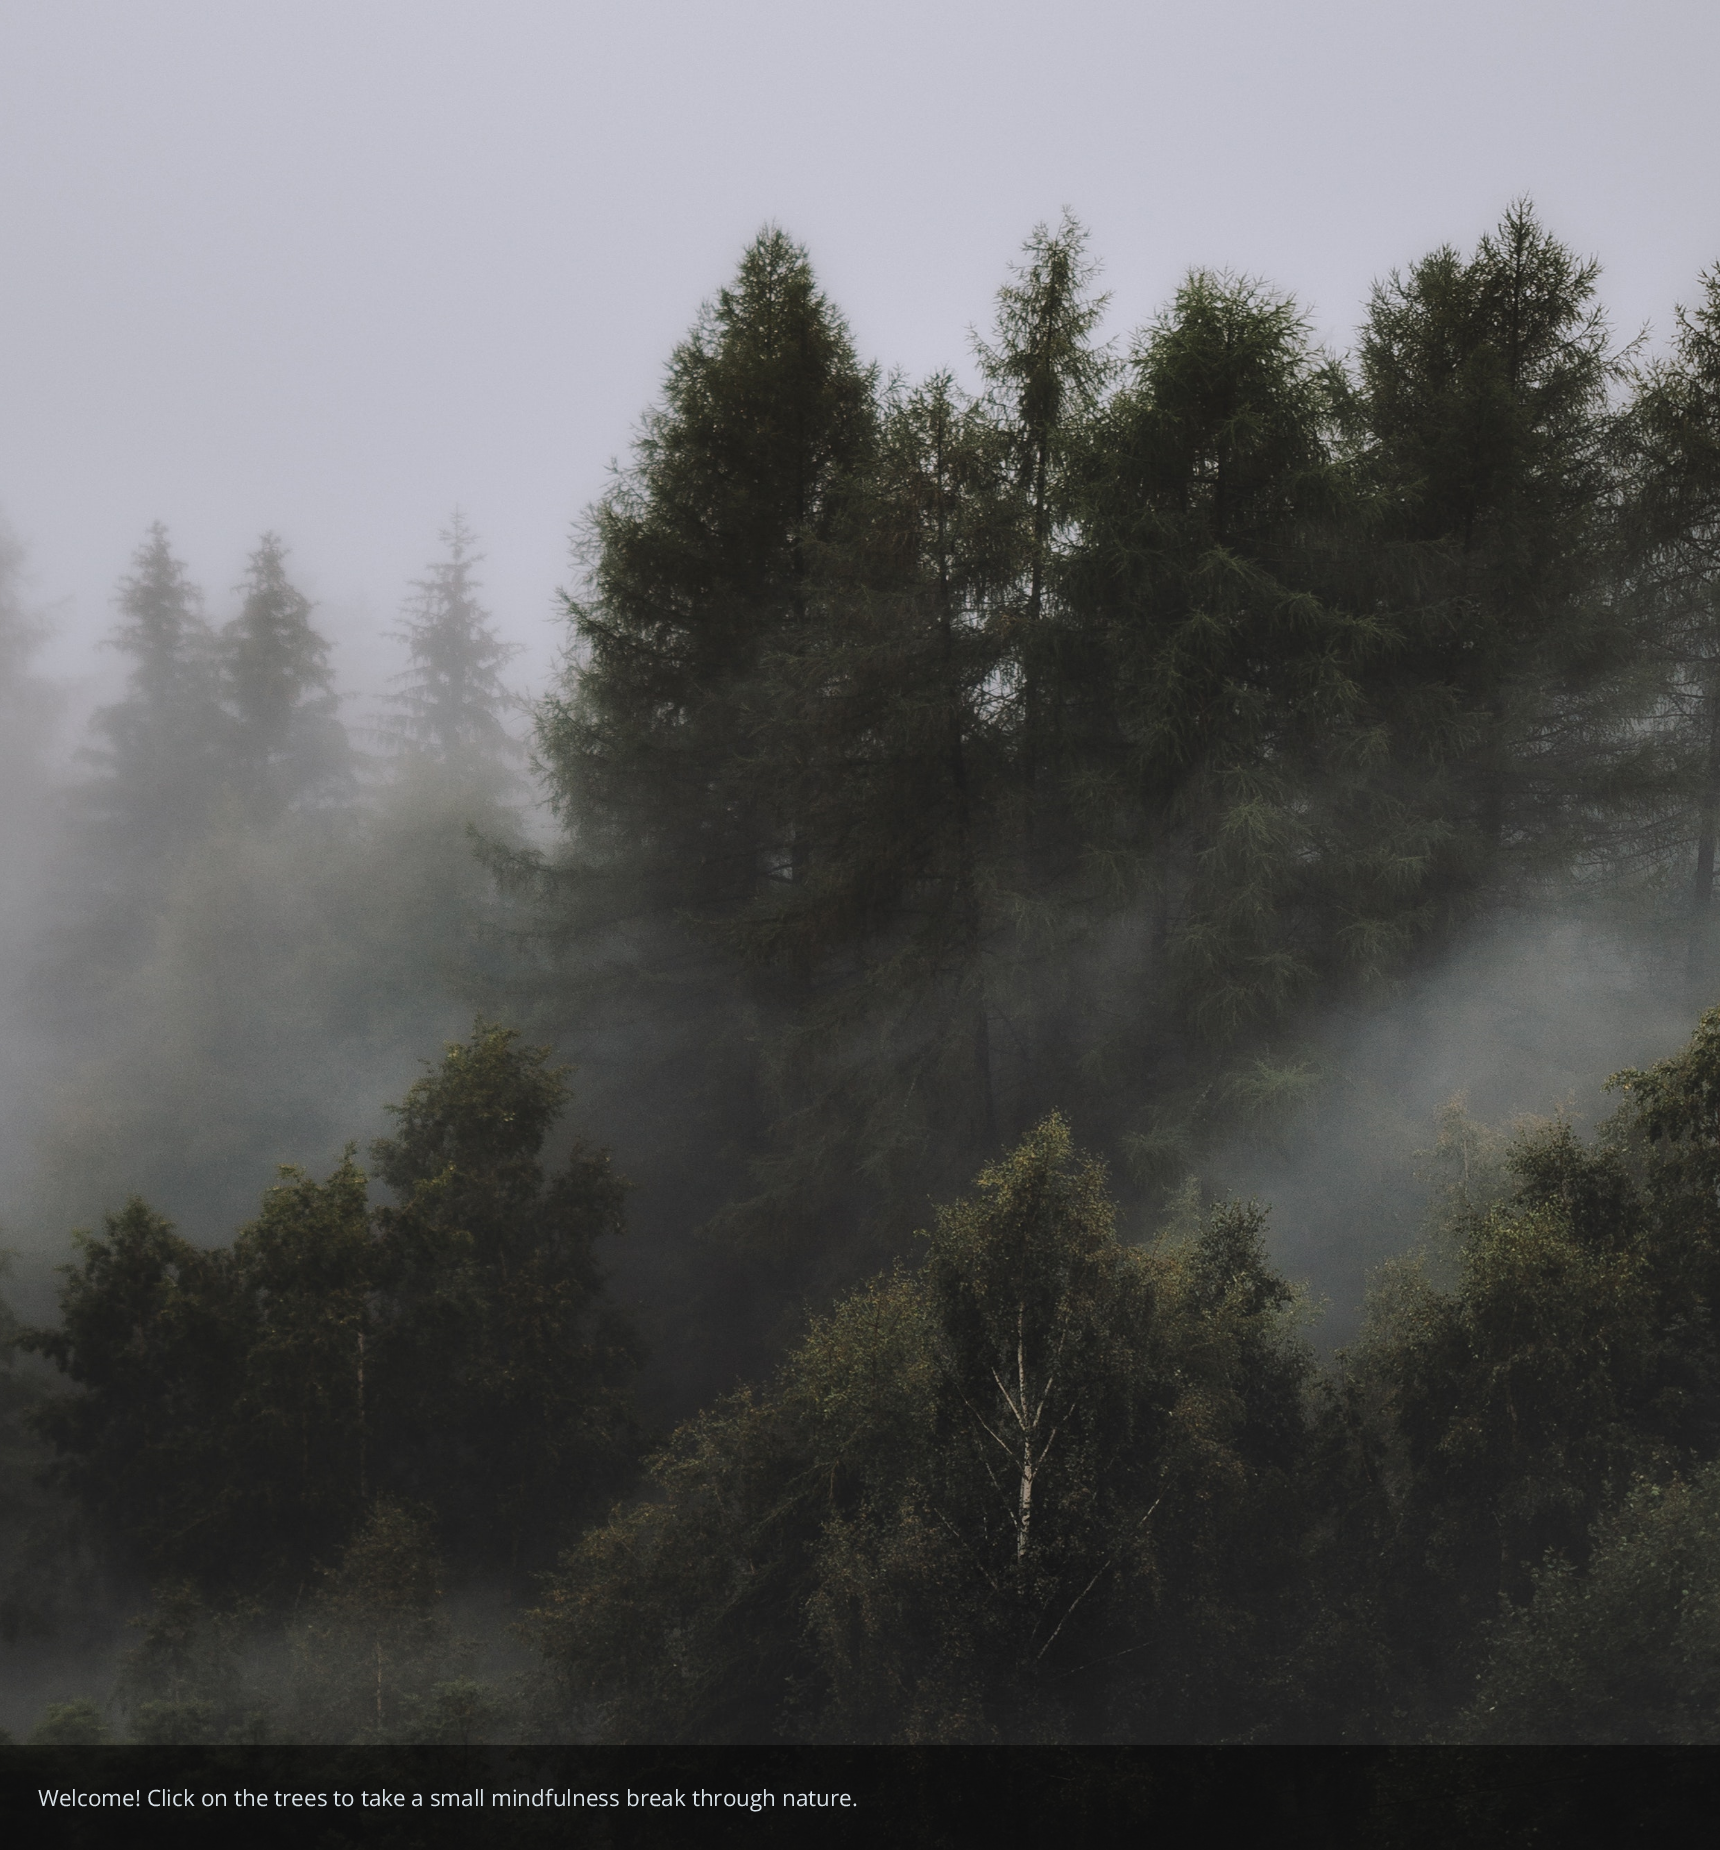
%!PS-Adobe-3.0
%%BoundingBox: 0 0 1720 1850
%%LanguageLevel: 3
%%Pages: 1
%%EndComments
%%BeginProlog
/fn { [ exch dup neg 0 0 3 -1 roll 0 0 ] selectfont } def
/tx { moveto show } def
/bx { rectfill } def
/al { dup .setfillconstantalpha .setstrokeconstantalpha } def
/im { 5 dict begin { /h /w /y /x /name } { exch def } forall
  gsave x y translate w h scale
  w h 8 [w 0 0 h 0 0] name (r) file false 3 colorimage grestore end } def
%%EndProlog
%%BeginSetup
<< /PageSize [1720 1850] /PageUsesTransparency true >> setpagedevice
%%EndSetup
%%Page: 1 1
0 .pushpdf14devicefilter
0 1850 translate 1 -1 scale
4 setmiterlimit
1 setgray
0 0 1720 1850 bx
(image0.raw) 0 0 1720 1850 im
0.5 al
0 setgray
0 1745 1720 105 bx
/OpenSans-Regular 22.5 fn
1 al
0.847 0.882 0.906 setrgbcolor
(Welcome! Click on the trees to take a small mindfulness break through nature.) 38 1806 tx
.poppdf14devicefilter showpage
%%EOF
